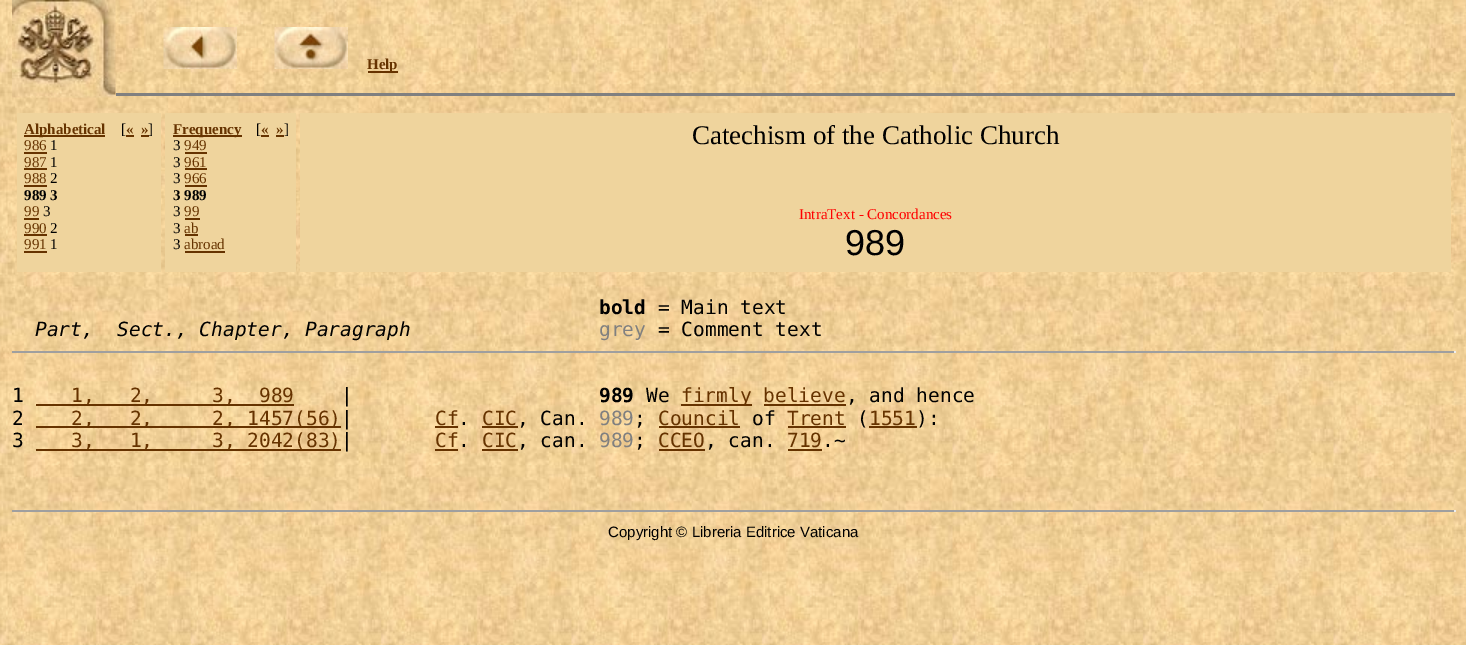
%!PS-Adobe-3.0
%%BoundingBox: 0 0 1466 645
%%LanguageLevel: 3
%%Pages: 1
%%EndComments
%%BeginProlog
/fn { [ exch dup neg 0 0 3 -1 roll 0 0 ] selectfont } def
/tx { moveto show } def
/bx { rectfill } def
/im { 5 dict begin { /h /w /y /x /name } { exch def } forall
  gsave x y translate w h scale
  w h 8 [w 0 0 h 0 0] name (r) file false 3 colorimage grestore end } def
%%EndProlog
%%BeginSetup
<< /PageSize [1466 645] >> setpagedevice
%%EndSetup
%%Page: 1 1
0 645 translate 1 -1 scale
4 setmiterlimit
1 setgray
0 0 1466 645 bx
(image0.raw) 0 0 1466 645 im
(image1.raw) 12 0 104 98 im
(image2.raw) 163 27 74 42 im
(image3.raw) 274 27 74 42 im
0.4 0.2 0 setrgbcolor
368 71 30 2 bx
/LiberationSerif-Bold 15 fn
(Help) 367 69 tx
0.502 setgray
116 93 1339 3 bx
0.937 0.831 0.616 setrgbcolor
17 113 144 159 bx
0.4 0.2 0 setrgbcolor
24 135 81 2 bx
(Alphabetical) 24 134 tx
/LiberationSerif-Regular 15 fn
0 setgray
([) 121 134 tx
/LiberationSerif-Bold 15 fn
0.4 0.2 0 setrgbcolor
(«) 126 134 tx
126 135 8 2 bx
(») 141 134 tx
141 135 8 2 bx
/LiberationSerif-Regular 15 fn
0 setgray
(]) 148 134 tx
0.4 0.2 0 setrgbcolor
(986) 24 150 tx
24 152 23 2 bx
0 setgray
(1) 50 150 tx
0.4 0.2 0 setrgbcolor
(987) 24 167 tx
24 168 23 2 bx
0 setgray
(1) 50 167 tx
0.4 0.2 0 setrgbcolor
(988) 24 183 tx
24 185 23 2 bx
0 setgray
(2) 50 183 tx
/LiberationSerif-Bold 15 fn
(989 3) 24 200 tx
/LiberationSerif-Regular 15 fn
0.4 0.2 0 setrgbcolor
(99) 24 216 tx
24 218 15 2 bx
0 setgray
(3) 43 216 tx
0.4 0.2 0 setrgbcolor
(990) 24 233 tx
24 234 23 2 bx
0 setgray
(2) 50 233 tx
0.4 0.2 0 setrgbcolor
(991) 24 249 tx
24 251 23 2 bx
0 setgray
(1) 50 249 tx
0.937 0.831 0.616 setrgbcolor
165 113 131 159 bx
0.4 0.2 0 setrgbcolor
173 135 69 2 bx
/LiberationSerif-Bold 15 fn
(Frequency) 173 134 tx
/LiberationSerif-Regular 15 fn
0 setgray
([) 256 134 tx
/LiberationSerif-Bold 15 fn
0.4 0.2 0 setrgbcolor
(«) 261 134 tx
261 135 8 2 bx
(») 276 134 tx
276 135 8 2 bx
/LiberationSerif-Regular 15 fn
0 setgray
(]) 284 134 tx
(3) 173 150 tx
0.4 0.2 0 setrgbcolor
(949) 184 150 tx
185 152 22 2 bx
0 setgray
(3) 173 167 tx
0.4 0.2 0 setrgbcolor
(961) 184 167 tx
185 168 22 2 bx
0 setgray
(3) 173 183 tx
0.4 0.2 0 setrgbcolor
(966) 184 183 tx
185 185 22 2 bx
/LiberationSerif-Bold 15 fn
0 setgray
(3 989) 173 200 tx
/LiberationSerif-Regular 15 fn
(3) 173 216 tx
0.4 0.2 0 setrgbcolor
(99) 184 216 tx
185 218 15 2 bx
0 setgray
(3) 173 233 tx
0.4 0.2 0 setrgbcolor
(ab) 184 233 tx
185 234 13 2 bx
0 setgray
(3) 173 249 tx
0.4 0.2 0 setrgbcolor
(abroad) 184 249 tx
185 251 40 2 bx
0.937 0.831 0.616 setrgbcolor
300 113 1151 159 bx
/LiberationSerif-Regular 27 fn
0 setgray
(Catechism of the Catholic Church) 692 144 tx
/LiberationSerif-Regular 15 fn
1 0 0 setrgbcolor
(IntraText - Concordances) 799 219 tx
/LiberationSans-Regular 36 fn
0 setgray
(989) 845 255 tx
/DejaVuSansMono-Bold 19.5 fn
(bold) 599 314 tx
/DejaVuSansMono-Regular 19.5 fn
(= Main text) 658 314 tx
/DejaVuSansMono-Italic 19.5 fn
(Part,  Sect., Chapter, Paragraph) 35 336 tx
/DejaVuSansMono-Regular 19.5 fn
0.502 setgray
(grey) 599 336 tx
0 setgray
(= Comment text) 658 336 tx
0.624 setgray
12 351 1443 2 bx
0.933 setgray
1454 351 2 2 bx
0 setgray
(1) 12 402 tx
0.4 0.2 0 setrgbcolor
36 404 258 2 bx
(1,   2,     3,  989) 71 402 tx
0 setgray
(|) 341 402 tx
/DejaVuSansMono-Bold 19.5 fn
(989) 599 402 tx
/DejaVuSansMono-Regular 19.5 fn
(We) 646 402 tx
0.4 0.2 0 setrgbcolor
681 404 71 2 bx
(firmly believe) 681 402 tx
0 setgray
(, and hence) 846 402 tx
0.4 0.2 0 setrgbcolor
764 404 82 2 bx
0 setgray
(2) 12 425 tx
0.4 0.2 0 setrgbcolor
36 426 305 2 bx
(2,   2,     2, 1457\(56\)) 71 425 tx
0 setgray
(|) 341 425 tx
0.4 0.2 0 setrgbcolor
(Cf) 435 425 tx
435 426 23 2 bx
0 setgray
(.) 458 425 tx
0.4 0.2 0 setrgbcolor
(CIC) 482 425 tx
482 426 36 2 bx
0 setgray
(, Can.) 517 425 tx
0.502 setgray
(989) 599 425 tx
0 setgray
(;) 634 425 tx
0.4 0.2 0 setrgbcolor
(Council) 658 425 tx
659 426 81 2 bx
0 setgray
(of) 752 425 tx
0.4 0.2 0 setrgbcolor
(Trent) 787 425 tx
788 426 58 2 bx
0 setgray
(\() 857 425 tx
0.4 0.2 0 setrgbcolor
(1551) 869 425 tx
869 426 48 2 bx
0 setgray
(\):) 916 425 tx
(3) 12 447 tx
0.4 0.2 0 setrgbcolor
36 449 305 2 bx
(3,   1,     3, 2042\(83\)) 71 447 tx
0 setgray
(|) 341 447 tx
0.4 0.2 0 setrgbcolor
(Cf) 435 447 tx
435 449 23 2 bx
0 setgray
(.) 458 447 tx
0.4 0.2 0 setrgbcolor
(CIC) 482 447 tx
482 449 36 2 bx
0 setgray
(, can.) 517 447 tx
0.502 setgray
(989) 599 447 tx
0 setgray
(;) 634 447 tx
0.4 0.2 0 setrgbcolor
(CCEO) 658 447 tx
659 449 46 2 bx
0 setgray
(, can.) 705 447 tx
0.4 0.2 0 setrgbcolor
(719) 787 447 tx
788 449 34 2 bx
0 setgray
(.~) 822 447 tx
0.624 setgray
12 510 1443 2 bx
0.933 setgray
1454 510 2 2 bx
/LiberationSans-Regular 15 fn
0 setgray
(Copyright © Libreria Editrice Vaticana) 608 537 tx
showpage
%%EOF
